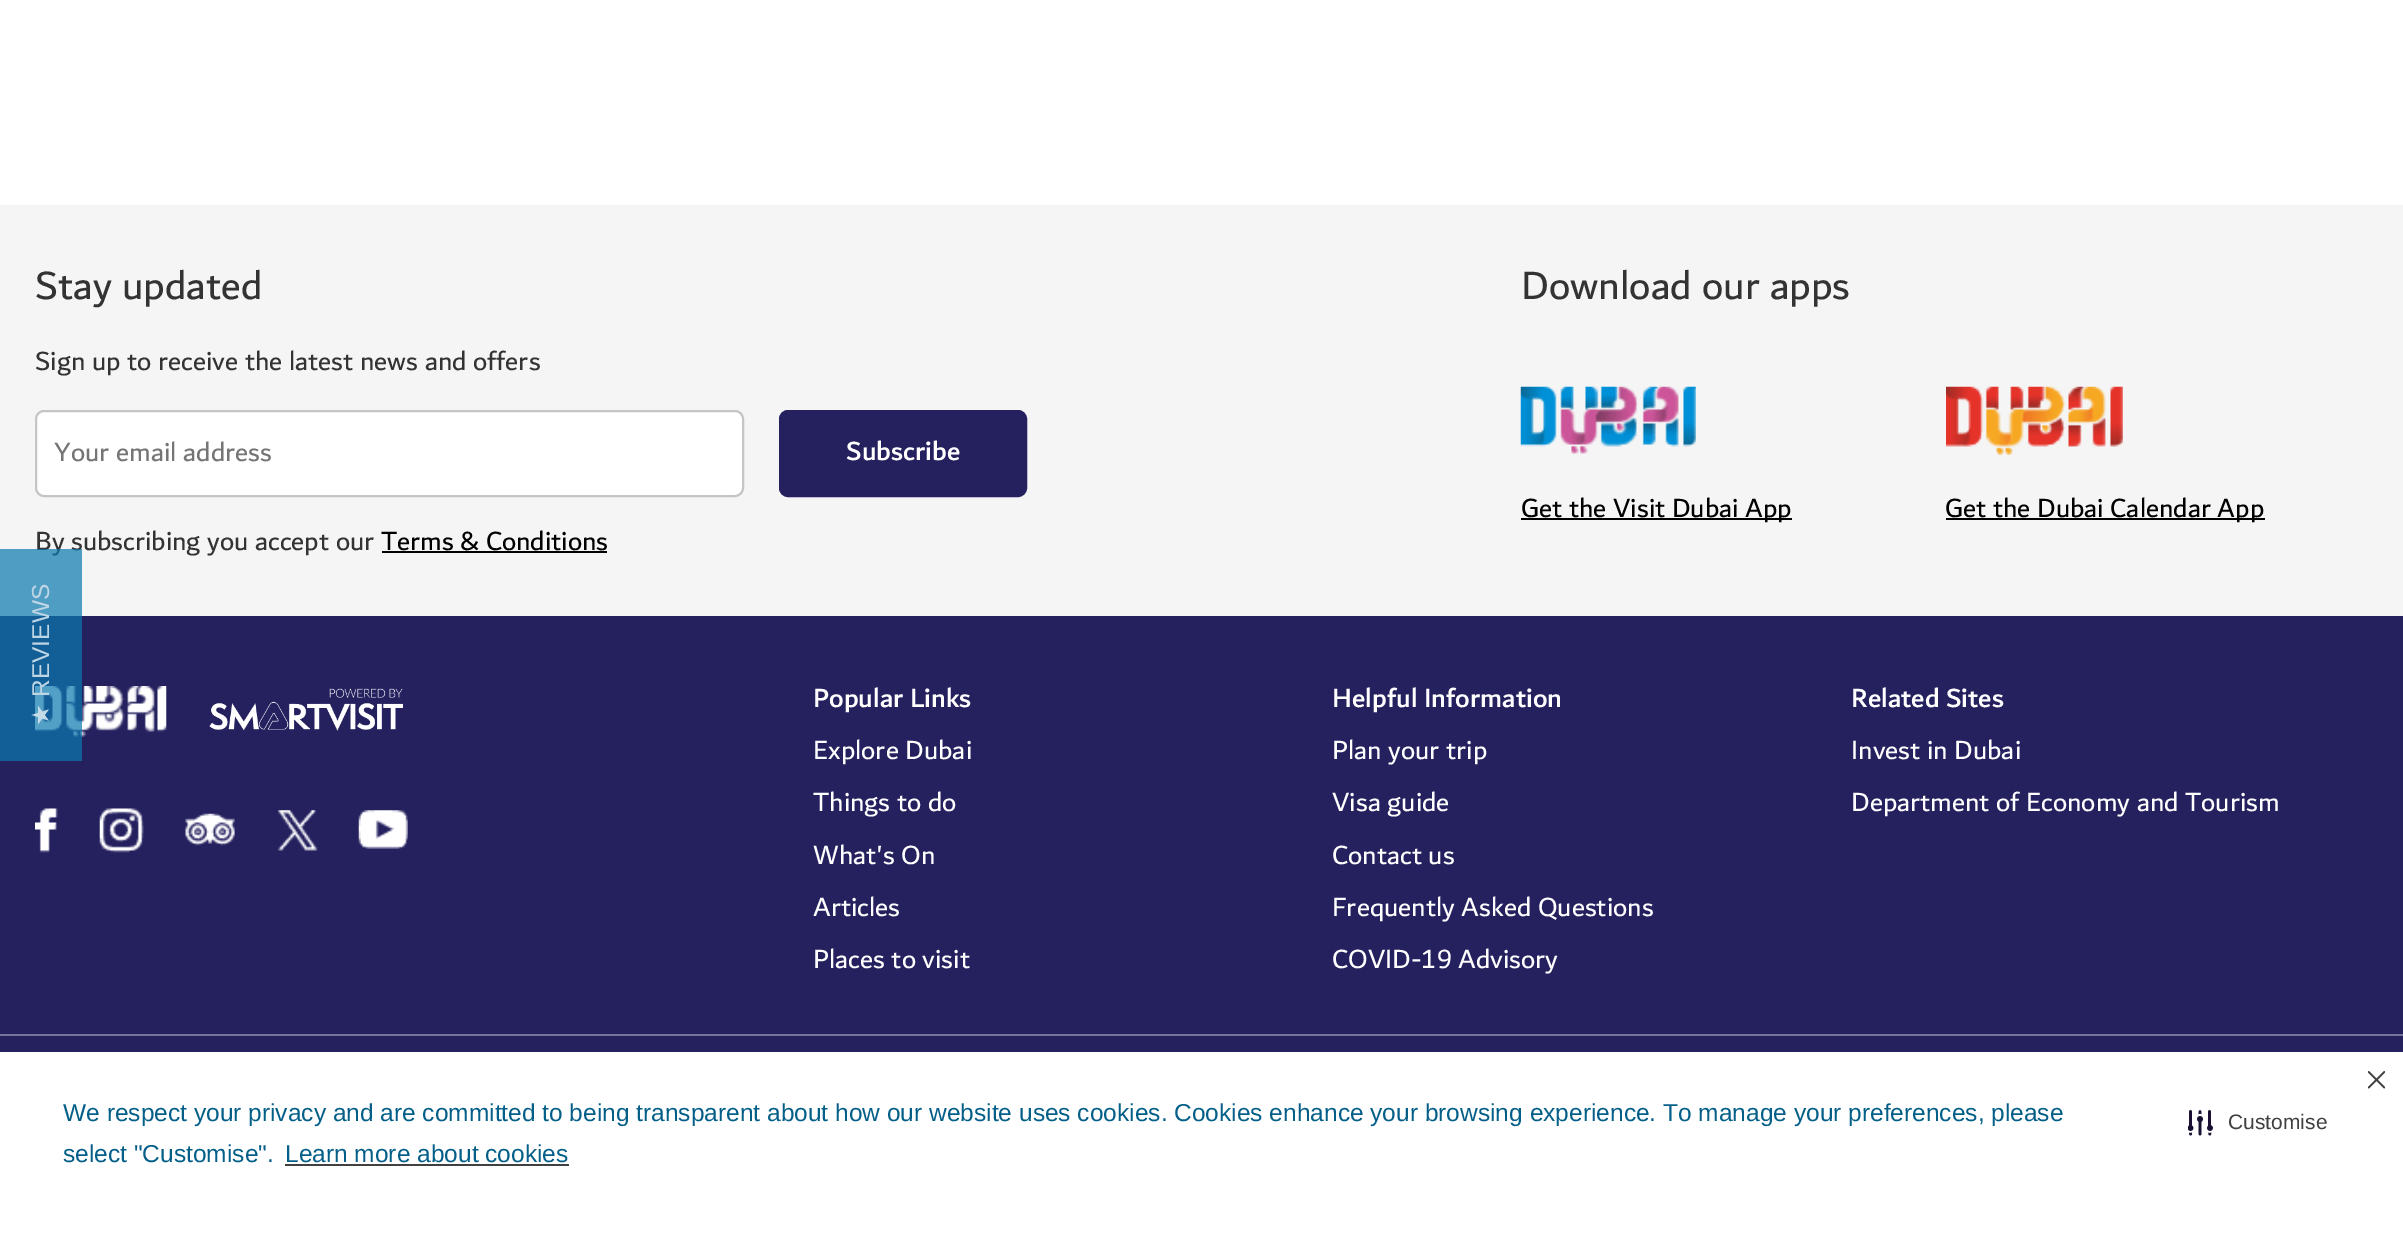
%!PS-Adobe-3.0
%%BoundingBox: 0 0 2403 1256
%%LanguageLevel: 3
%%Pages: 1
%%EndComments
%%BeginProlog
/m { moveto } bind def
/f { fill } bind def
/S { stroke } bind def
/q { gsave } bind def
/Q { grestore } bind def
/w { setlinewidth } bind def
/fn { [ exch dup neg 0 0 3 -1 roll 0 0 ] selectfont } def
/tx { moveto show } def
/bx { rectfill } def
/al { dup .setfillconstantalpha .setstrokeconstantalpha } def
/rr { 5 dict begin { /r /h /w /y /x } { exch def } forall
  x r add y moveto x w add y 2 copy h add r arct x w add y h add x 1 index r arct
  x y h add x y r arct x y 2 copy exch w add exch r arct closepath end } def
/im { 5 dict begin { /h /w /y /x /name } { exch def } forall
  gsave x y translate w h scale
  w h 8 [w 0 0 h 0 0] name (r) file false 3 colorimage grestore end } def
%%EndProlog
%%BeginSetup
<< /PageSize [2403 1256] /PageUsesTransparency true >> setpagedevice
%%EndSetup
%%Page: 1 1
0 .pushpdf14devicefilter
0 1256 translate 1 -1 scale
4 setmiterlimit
1 setgray
0 0 2403 1256 bx
0.961 setgray
0 205 2403 411 bx
/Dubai-Regular 42 fn
0.2 setgray
(Stay updated) 35 299 tx
/Dubai-Regular 28 fn
(Sign up to receive the latest news and offers) 35 370 tx
1 setgray
36 411 707 85 8 rr q f Q
0.773 setgray
2 w
S
0.459 setgray
(Your email address) 54 461 tx
0.145 0.129 0.373 setrgbcolor
780 411 246 85 8 rr q f Q
S
/Dubai-Medium 28 fn
1 setgray
(Subscribe) 846 460 tx
/Dubai-Regular 28 fn
0.2 setgray
(By subscribing you accept our) 35 550 tx
0 setgray
(Terms & Conditions) 381 550 tx
382 551 225 2 bx
/Dubai-Regular 42 fn
0.2 setgray
(Download our apps) 1521 299 tx
(image0.raw) 1520 386 176 68 im
0 setgray
1521 518 271 2 bx
/Dubai-Regular 28 fn
(Get the Visit Dubai App) 1521 517 tx
(image1.raw) 1946 386 177 69 im
1946 518 319 2 bx
(Get the Dubai Calendar App) 1945 517 tx
0.145 0.129 0.373 setrgbcolor
0 616 2403 436 bx
(image2.raw) 35 686 132 51 im
(image3.raw) 209 688 194 43 im
(image4.raw) 35 808 23 45 im
(image5.raw) 99 808 45 45 im
(image6.raw) 185 813 50 33 im
(image7.raw) 278 810 40 41 im
(image8.raw) 358 810 50 39 im
/Dubai-Medium 28 fn
1 setgray
(Popular Links) 813 707 tx
/Dubai-Regular 28 fn
(Explore Dubai) 813 759 tx
(Things to do) 813 811 tx
(What's On) 813 864 tx
(Articles) 813 916 tx
(Places to visit) 813 968 tx
/Dubai-Medium 28 fn
(Helpful Information) 1332 707 tx
/Dubai-Regular 28 fn
(Plan your trip) 1332 759 tx
(Visa guide) 1332 811 tx
(Contact us) 1332 864 tx
(Frequently Asked Questions) 1332 916 tx
(COVID-19 Advisory) 1332 968 tx
/Dubai-Medium 28 fn
(Related Sites) 1851 707 tx
/Dubai-Regular 28 fn
(Invest in Dubai) 1851 759 tx
(Department of Economy and Tourism) 1851 811 tx
0.471 0.459 0.612 setrgbcolor
0 1034 2403 2 bx
0.7 al
0.039 0.471 0.686 setrgbcolor
0 549 82 212 bx
/LiberationSans-Regular 24.5 fn
1 al
0.745 0.835 0.894 setrgbcolor
q 49 697 translate -90 rotate 0 0 m (REVIEWS) show Q
/DejaVuSans-Regular 24.5 fn
0.769 0.859 0.91 setrgbcolor
q 49 726 translate -90 rotate 0 0 m (★) show Q
/LiberationSans-Regular 24.5 fn
0.012 0.369 0.533 setrgbcolor
(We respect your privacy and are committed to being transparent about how our website uses cookies. Cookies enhance your browsing experience. To manage your preferences, please) 63 1121 tx
(select "Customise".) 63 1162 tx
(Learn more about cookies) 285 1162 tx
0.251 setgray
285 1164 284 2 bx
(image9.raw) 2368 1071 17 18 im
(image10.raw) 2188 1110 25 26 im
/LiberationSans-Regular 21 fn
(Customise) 2228 1129 tx
.poppdf14devicefilter showpage
%%EOF
